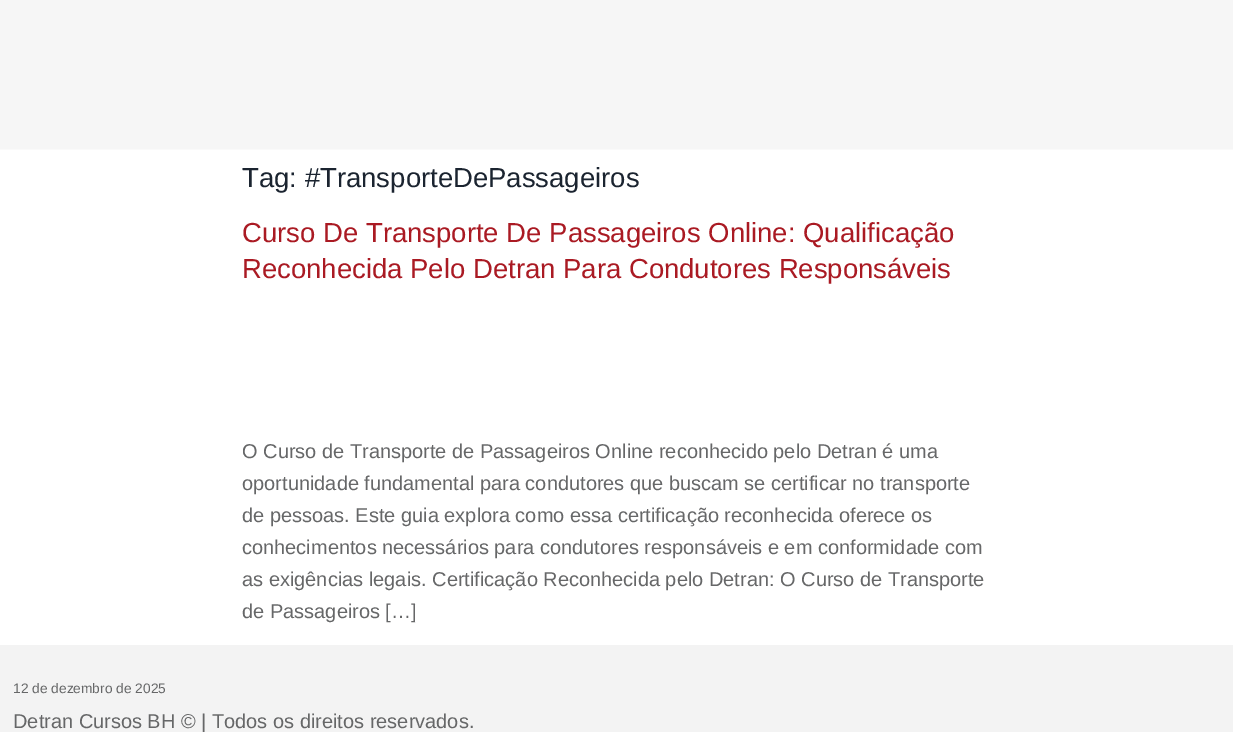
%!PS-Adobe-3.0
%%BoundingBox: 0 0 1233 732
%%LanguageLevel: 3
%%Pages: 1
%%EndComments
%%BeginProlog
/fn { [ exch dup neg 0 0 3 -1 roll 0 0 ] selectfont } def
/tx { moveto show } def
/bx { rectfill } def
%%EndProlog
%%BeginSetup
<< /PageSize [1233 732] >> setpagedevice
%%EndSetup
%%Page: 1 1
0 732 translate 1 -1 scale
4 setmiterlimit
1 setgray
0 0 1233 732 bx
0.98 setgray
0 149 1233 1 bx
0.965 setgray
0 0 1233 149 bx
/LiberationSans-Regular 27.5 fn
0.106 0.141 0.188 setrgbcolor
(Tag: #TransporteDePassageiros) 242 187 tx
0.667 0.102 0.137 setrgbcolor
(Curso De Transporte De Passageiros Online: Qualificação) 242 242 tx
(Reconhecida Pelo Detran Para Condutores Responsáveis) 242 278 tx
/LiberationSans-Regular 20 fn
0.4 0.404 0.408 setrgbcolor
(O Curso de Transporte de Passageiros Online reconhecido pelo Detran é uma) 242 458 tx
(oportunidade fundamental para condutores que buscam se certificar no transporte) 242 490 tx
(de pessoas. Este guia explora como essa certificação reconhecida oferece os) 242 522 tx
(conhecimentos necessários para condutores responsáveis e em conformidade com) 242 554 tx
(as exigências legais. Certificação Reconhecida pelo Detran: O Curso de Transporte) 242 586 tx
(de Passageiros […]) 242 618 tx
0.953 setgray
0 645 1233 87 bx
/LiberationSans-Regular 13.75 fn
0.4 0.404 0.408 setrgbcolor
(12 de dezembro de 2025) 13 693 tx
/LiberationSans-Regular 20 fn
(Detran Cursos BH © | Todos os direitos reservados.) 13 728 tx
showpage
%%EOF
